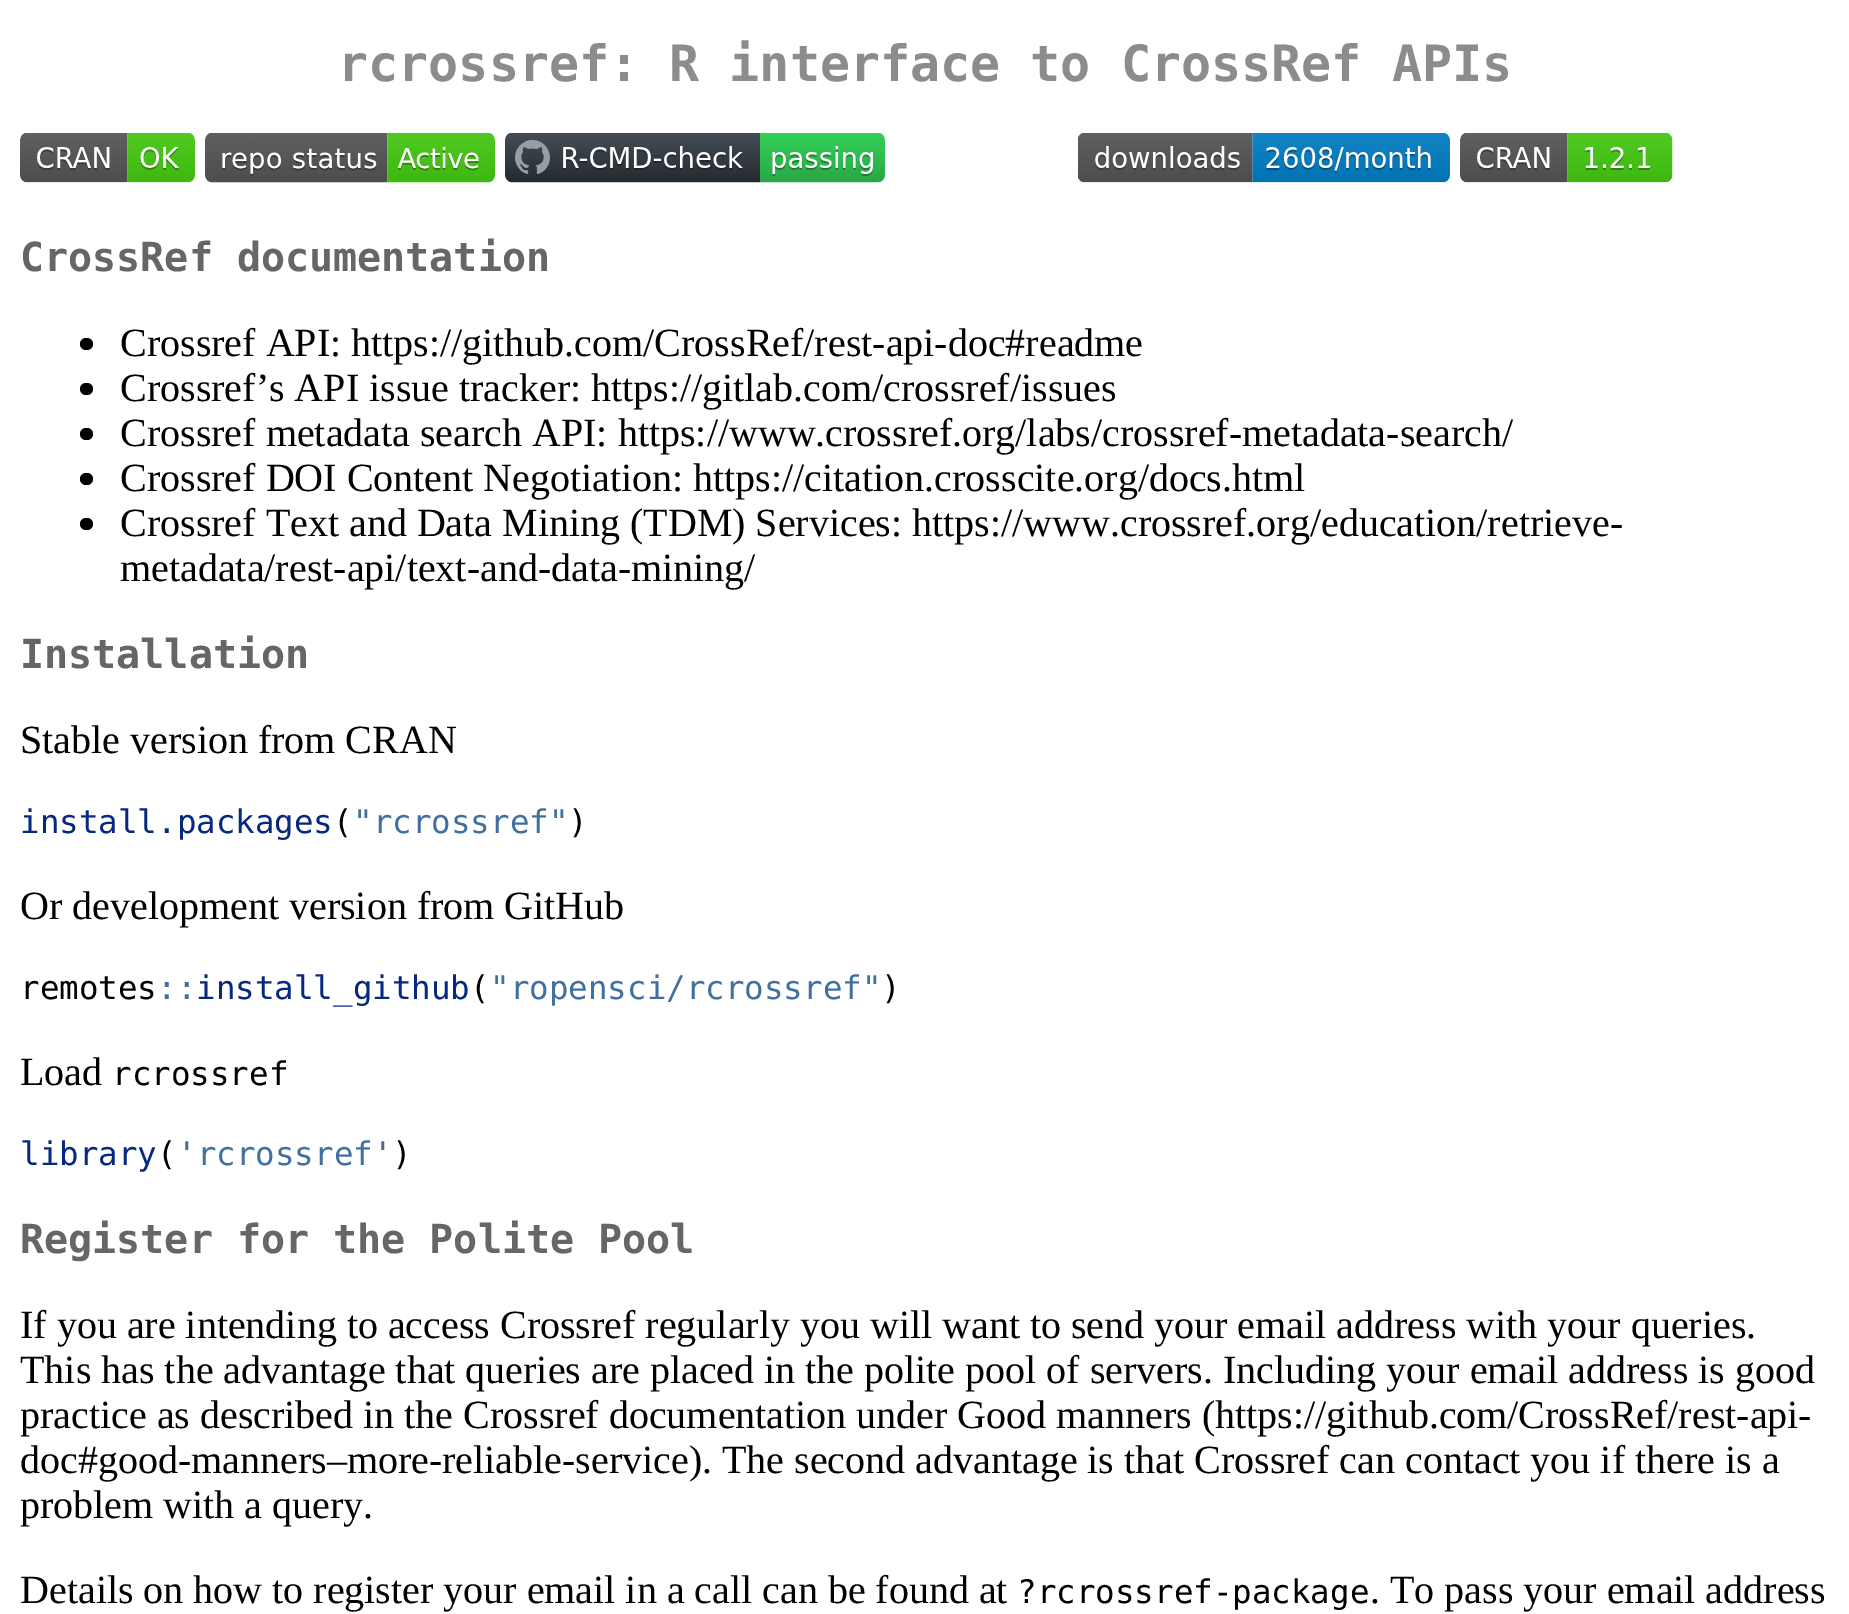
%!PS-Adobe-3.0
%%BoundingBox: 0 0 1849 1614
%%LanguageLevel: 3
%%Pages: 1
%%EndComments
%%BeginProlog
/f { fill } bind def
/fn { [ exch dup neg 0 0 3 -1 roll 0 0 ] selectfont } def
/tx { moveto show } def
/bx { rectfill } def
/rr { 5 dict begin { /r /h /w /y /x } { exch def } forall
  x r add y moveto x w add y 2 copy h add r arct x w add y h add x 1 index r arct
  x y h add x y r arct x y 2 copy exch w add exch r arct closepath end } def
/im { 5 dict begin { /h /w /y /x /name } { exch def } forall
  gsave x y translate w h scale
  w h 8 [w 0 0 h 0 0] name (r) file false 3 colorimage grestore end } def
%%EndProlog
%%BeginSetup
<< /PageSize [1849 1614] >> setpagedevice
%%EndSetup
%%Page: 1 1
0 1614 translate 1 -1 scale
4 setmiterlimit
1 setgray
0 0 1849 1614 bx
/DejaVuSansMono-Bold 50 fn
0.549 setgray
(rcrossref: R interface to CrossRef APIs) 338 81 tx
(image0.raw) 20 133 175 50 im
(image1.raw) 205 133 290 50 im
(image2.raw) 505 133 380 50 im
(image3.raw) 1078 133 372 50 im
(image4.raw) 1460 133 213 50 im
/DejaVuSansMono-Bold 40 fn
0.4 setgray
(CrossRef documentation) 20 271 tx
0 setgray
80 338 13 12 6 rr f
/LiberationSerif-Regular 40 fn
(Crossref API: https://github.com/CrossRef/rest-api-doc#readme) 120 356 tx
80 383 13 12 6 rr f
(Crossref’s API issue tracker: https://gitlab.com/crossref/issues) 120 401 tx
80 428 13 12 6 rr f
(Crossref metadata search API: https://www.crossref.org/labs/crossref-metadata-search/) 120 446 tx
80 473 13 12 6 rr f
(Crossref DOI Content Negotiation: https://citation.crosscite.org/docs.html) 120 491 tx
80 518 13 12 6 rr f
(Crossref Text and Data Mining \(TDM\) Services: https://www.crossref.org/education/retrieve-) 120 536 tx
(metadata/rest-api/text-and-data-mining/) 120 581 tx
/DejaVuSansMono-Bold 40 fn
0.4 setgray
(Installation) 20 668 tx
/LiberationSerif-Regular 40 fn
0 setgray
(Stable version from CRAN) 20 753 tx
/DejaVuSansMono-Regular 32.5 fn
0.024 0.157 0.494 setrgbcolor
(install.packages) 20 833 tx
0 setgray
(\() 333 833 tx
0.251 0.439 0.627 setrgbcolor
("rcrossref") 353 833 tx
0 setgray
(\)) 568 833 tx
/LiberationSerif-Regular 40 fn
(Or development version from GitHub) 20 919 tx
/DejaVuSansMono-Regular 32.5 fn
(remotes) 20 999 tx
0.251 0.439 0.627 setrgbcolor
(::) 157 999 tx
0.024 0.157 0.494 setrgbcolor
(install_github) 196 999 tx
0 setgray
(\() 470 999 tx
0.251 0.439 0.627 setrgbcolor
("ropensci/rcrossref") 490 999 tx
0 setgray
(\)) 881 999 tx
/LiberationSerif-Regular 40 fn
(Load) 20 1085 tx
/DejaVuSansMono-Regular 32.5 fn
(rcrossref) 112 1085 tx
0.024 0.157 0.494 setrgbcolor
(library) 20 1165 tx
0 setgray
(\() 157 1165 tx
0.251 0.439 0.627 setrgbcolor
('rcrossref') 177 1165 tx
0 setgray
(\)) 392 1165 tx
/DejaVuSansMono-Bold 40 fn
0.4 setgray
(Register for the Polite Pool) 20 1253 tx
/LiberationSerif-Regular 40 fn
0 setgray
(If you are intending to access Crossref regularly you will want to send your email address with your queries.) 20 1338 tx
(This has the advantage that queries are placed in the polite pool of servers. Including your email address is good) 20 1383 tx
(practice as described in the Crossref documentation under Good manners \(https://github.com/CrossRef/rest-api-) 20 1428 tx
(doc#good-manners–more-reliable-service\). The second advantage is that Crossref can contact you if there is a) 20 1473 tx
(problem with a query.) 20 1518 tx
(Details on how to register your email in a call can be found at) 20 1603 tx
/DejaVuSansMono-Regular 32.5 fn
(?rcrossref-package) 1017 1603 tx
/LiberationSerif-Regular 40 fn
(. To pass your email address) 1370 1603 tx
showpage
%%EOF
